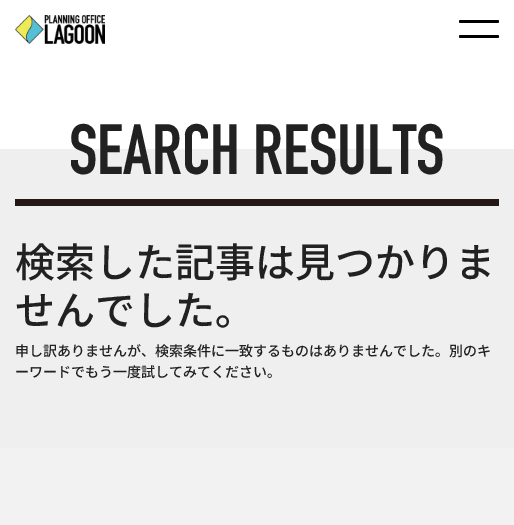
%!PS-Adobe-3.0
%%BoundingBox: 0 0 514 525
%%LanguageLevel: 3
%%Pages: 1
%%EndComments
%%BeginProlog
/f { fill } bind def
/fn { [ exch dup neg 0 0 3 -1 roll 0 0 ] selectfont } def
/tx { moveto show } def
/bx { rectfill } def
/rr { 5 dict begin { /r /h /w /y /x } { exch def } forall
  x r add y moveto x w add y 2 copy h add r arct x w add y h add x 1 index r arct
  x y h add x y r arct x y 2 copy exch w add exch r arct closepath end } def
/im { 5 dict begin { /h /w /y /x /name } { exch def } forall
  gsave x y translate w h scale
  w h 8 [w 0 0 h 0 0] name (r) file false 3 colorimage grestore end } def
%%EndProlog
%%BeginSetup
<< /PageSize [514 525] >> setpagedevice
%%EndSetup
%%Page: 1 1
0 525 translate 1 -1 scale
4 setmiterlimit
1 setgray
0 0 514 525 bx
(image0.raw) 15 15 90 29 im
0 setgray
459 20 40 3 1.5 rr f
459 35 40 3 1.5 rr f
0.937 setgray
0 149 514 299 bx
/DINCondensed-Bold 70 fn
0.129 setgray
(SEARCH RESULTS) 69 174 tx
0.145 0.09 0.078 setrgbcolor
15 199 484 7 bx
/NotoSansJP-Medium 40 fn
0.129 setgray
(検索した記事は見つかりま) 15 277 tx
(せんでした。) 15 325 tx
/NotoSansJP-Medium 14 fn
(申し訳ありませんが、検索条件に一致するものはありませんでした。別のキ) 15 356 tx
(ーワードでもう一度試してみてください。) 15 377 tx
0.949 setgray
0 448 514 77 bx
showpage
%%EOF
